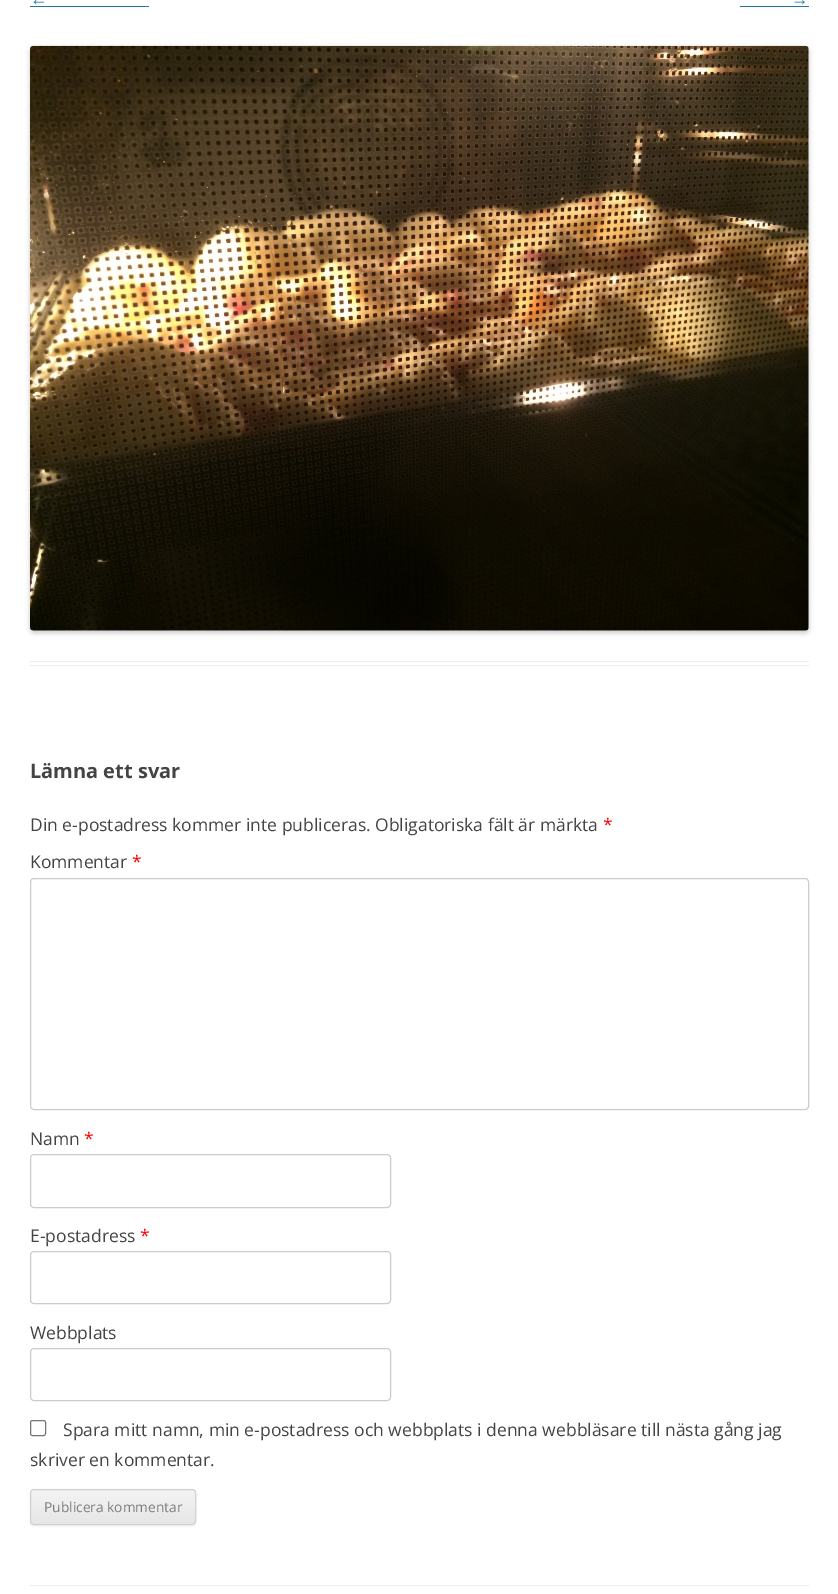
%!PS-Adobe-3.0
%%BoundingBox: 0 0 838 1594
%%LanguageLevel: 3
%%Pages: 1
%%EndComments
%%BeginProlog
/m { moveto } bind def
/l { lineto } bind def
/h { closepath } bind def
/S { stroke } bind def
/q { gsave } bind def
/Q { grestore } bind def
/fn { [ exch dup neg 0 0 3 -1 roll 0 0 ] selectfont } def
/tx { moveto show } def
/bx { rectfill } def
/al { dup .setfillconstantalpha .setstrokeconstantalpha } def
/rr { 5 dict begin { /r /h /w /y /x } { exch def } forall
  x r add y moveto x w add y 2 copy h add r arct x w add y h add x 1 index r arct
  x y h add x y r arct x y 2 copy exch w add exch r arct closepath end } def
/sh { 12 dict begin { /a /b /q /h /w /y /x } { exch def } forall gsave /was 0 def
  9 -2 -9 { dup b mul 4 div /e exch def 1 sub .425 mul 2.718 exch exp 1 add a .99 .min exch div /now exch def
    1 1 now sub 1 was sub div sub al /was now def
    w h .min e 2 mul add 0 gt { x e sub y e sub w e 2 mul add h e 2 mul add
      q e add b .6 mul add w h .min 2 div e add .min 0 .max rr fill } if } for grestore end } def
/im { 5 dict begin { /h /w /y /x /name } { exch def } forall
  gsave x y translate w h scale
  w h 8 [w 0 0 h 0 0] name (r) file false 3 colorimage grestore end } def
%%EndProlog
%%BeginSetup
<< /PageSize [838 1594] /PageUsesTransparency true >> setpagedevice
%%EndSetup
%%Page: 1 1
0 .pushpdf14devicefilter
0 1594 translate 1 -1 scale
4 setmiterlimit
1 setgray
0 0 838 1594 bx
0.929 setgray
30 661 779 1 bx
30 665 779 1 bx
/LiberationSans-Regular 17.5 fn
0.129 0.459 0.608 setrgbcolor
(←) 30 5 tx
30 6 119 1 bx
(→) 791 5 tx
740 6 69 1 bx
0 setgray
30 48 779 585 4 2.5 0.2 sh
(image0.raw) 30 45 779 586 im
/OpenSans-Bold 20 fn
0.267 setgray
(Lämna ett svar) 30 778 tx
/OpenSans-Regular 17.5 fn
(Din e-postadress kommer inte publiceras. Obligatoriska fält är märkta) 30 831 tx
1 0 0 setrgbcolor
(*) 603 831 tx
0.267 setgray
(Kommentar) 30 868 tx
1 0 0 setrgbcolor
(*) 132 868 tx
0.8 setgray
30.5 878.5 778 231 3.5 rr S
0.267 setgray
(Namn) 30 1145 tx
1 0 0 setrgbcolor
(*) 84 1145 tx
0.8 setgray
30.5 1154.5 360 53 3.5 rr S
0.267 setgray
(E-postadress) 30 1242 tx
1 0 0 setrgbcolor
(*) 140 1242 tx
0.8 setgray
30.5 1251.5 360 52 3.5 rr S
0.267 setgray
(Webbplats) 30 1339 tx
0.8 setgray
30.5 1348.5 360 52 3.5 rr S
0.463 setgray
30.5 1420.5 15 15 2 rr S
0.267 setgray
(Spara mitt namn, min e-postadress och webbplats i denna webbläsare till nästa gång jag) 63 1436 tx
(skriver en kommentar.) 30 1466 tx
0.251 setgray
30 1490 166 36 4 1 0.1 sh
q
30 1489 166 36 4 rr clip newpath
q 30 1490 m 196 1490 l 196 1524 l 30 1524 l h clip newpath
<< /ShadingType 2 /ColorSpace /DeviceRGB /Coords [113 1490 113 1524] /Extend [true true] /Function << /FunctionType 2 /Domain [0 1] /C0 [0.957 0.957 0.957] /C1 [0.902 0.902 0.902] /N 1 >> >> shfill Q
Q
0.824 setgray
30.5 1489.5 165 35 3.5 rr S
/OpenSans-Regular 13.75 fn
0.486 setgray
(Publicera kommentar) 44 1512 tx
0.929 setgray
30 1585 779 1 bx
.poppdf14devicefilter showpage
%%EOF
